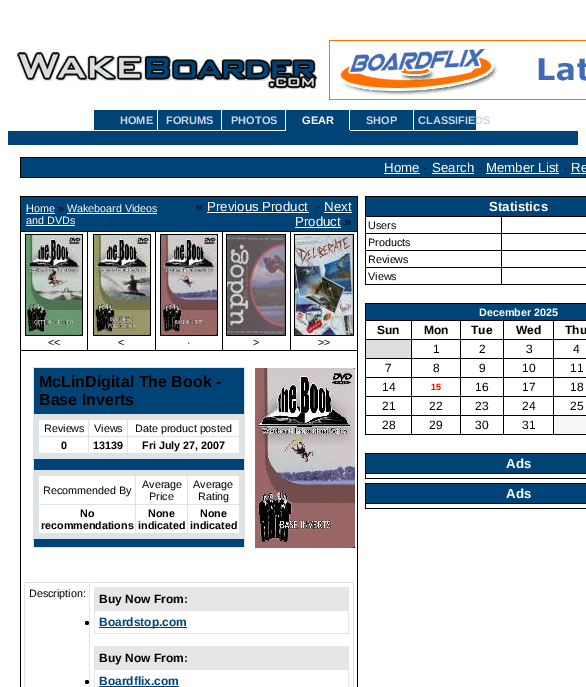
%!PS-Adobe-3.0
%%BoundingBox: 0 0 586 687
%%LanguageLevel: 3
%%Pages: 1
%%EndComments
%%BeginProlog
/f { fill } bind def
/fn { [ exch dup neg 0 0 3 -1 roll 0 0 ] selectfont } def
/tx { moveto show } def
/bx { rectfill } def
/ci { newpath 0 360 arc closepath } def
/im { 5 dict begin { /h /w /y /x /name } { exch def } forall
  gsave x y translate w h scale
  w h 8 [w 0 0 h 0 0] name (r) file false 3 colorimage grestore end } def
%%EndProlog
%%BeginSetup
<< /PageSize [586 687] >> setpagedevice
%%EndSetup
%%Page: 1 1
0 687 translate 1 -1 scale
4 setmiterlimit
1 setgray
0 0 586 687 bx
(image0.raw) 17 52 300 37 im
(image1.raw) 329 40 257 60 im
0 0.267 0.467 setrgbcolor
94 110 63 20 bx
/LiberationSans-Bold 11 fn
0.792 0.835 0.902 setrgbcolor
(HOME) 120 124 tx
0 0.267 0.467 setrgbcolor
158 110 63 20 bx
0.792 0.835 0.902 setrgbcolor
(FORUMS) 166 124 tx
0 0.267 0.467 setrgbcolor
222 110 63 20 bx
0.792 0.835 0.902 setrgbcolor
(PHOTOS) 231 124 tx
0 0.267 0.467 setrgbcolor
286 110 64 21 bx
1 setgray
(GEAR) 302 124 tx
0 0.267 0.467 setrgbcolor
350 110 63 20 bx
1 setgray
349 110 1 20 bx
0.792 0.835 0.902 setrgbcolor
(SHOP) 366 124 tx
0 0.267 0.467 setrgbcolor
414 110 62 20 bx
0.792 0.835 0.902 setrgbcolor
(CLASSIFIEDS) 418 124 tx
0 0.267 0.467 setrgbcolor
8 131 570 14 bx
0 setgray
20 157 566 21 bx
0 0.267 0.467 setrgbcolor
21 158 565 19 bx
/LiberationSans-Regular 13.25 fn
1 setgray
(Home) 384 172 tx
384 173 36 1 bx
0 setgray
(·) 423 172 tx
1 setgray
(Search) 432 172 tx
432 173 42 1 bx
0 setgray
(·) 478 172 tx
1 setgray
(Member List) 486 172 tx
486 173 73 1 bx
0 setgray
(·) 563 172 tx
1 setgray
(Re) 571 172 tx
571 173 15 1 bx
0 setgray
20 196 338 491 bx
0 0.267 0.467 setrgbcolor
21 197 336 34 bx
/LiberationSans-Regular 10.75 fn
1 setgray
(Home) 26 212 tx
26 213 29 1 bx
0 setgray
(») 58 212 tx
1 setgray
(Wakeboard Videos) 67 212 tx
67 213 90 1 bx
(and DVDs) 26 224 tx
26 225 49 1 bx
/LiberationSans-Regular 13.25 fn
0 setgray
(«) 196 211 tx
1 setgray
(Previous Product) 207 211 tx
207 212 102 1 bx
0 setgray
(·) 316 211 tx
1 setgray
(Next) 324 211 tx
324 212 28 1 bx
(Product) 295 226 tx
295 227 46 1 bx
0 setgray
(») 344 226 tx
1 setgray
21 232 66 118 bx
0 setgray
25 234 58 102 bx
(image2.raw) 26 235 56 100 im
/LiberationSans-Regular 10.75 fn
(<<) 48 346 tx
1 setgray
88 232 67 118 bx
0 setgray
93 234 58 102 bx
(image3.raw) 94 235 56 100 im
(<) 118 346 tx
1 setgray
156 232 66 118 bx
0 setgray
160 234 58 102 bx
(image4.raw) 161 235 56 100 im
(·) 187 346 tx
1 setgray
223 232 67 118 bx
0 setgray
226 234 60 102 bx
(image5.raw) 227 235 58 100 im
(>) 253 346 tx
1 setgray
291 232 66 118 bx
0 setgray
294 234 60 102 bx
(image6.raw) 295 235 58 100 im
(>>) 318 346 tx
1 setgray
21 351 336 336 bx
0.871 0.89 0.906 setrgbcolor
33 367 212 181 bx
0 0.267 0.467 setrgbcolor
34 368 210 46 bx
/LiberationSans-Bold 16 fn
0 setgray
(McLinDigital The Book -) 39 387 tx
(Base Inverts) 39 405 tx
1 setgray
39 420 49 16 bx
/LiberationSans-Regular 10.75 fn
0 setgray
(Reviews) 44 432 tx
1 setgray
89 420 38 16 bx
0 setgray
(Views) 94 432 tx
1 setgray
128 420 111 16 bx
0 setgray
(Date product posted) 135 432 tx
1 setgray
39 437 49 16 bx
/LiberationSans-Bold 10.75 fn
0 setgray
(0) 61 449 tx
1 setgray
89 437 38 16 bx
0 setgray
(13139) 93 449 tx
1 setgray
128 437 111 16 bx
0 setgray
(Fri July 27, 2007) 142 449 tx
0 0.267 0.467 setrgbcolor
34 459 210 11 bx
1 setgray
39 476 96 28 bx
/LiberationSans-Regular 10.75 fn
0 setgray
(Recommended By) 43 494 tx
1 setgray
136 476 51 28 bx
0 setgray
(Average) 142 488 tx
(Price) 149 500 tx
1 setgray
188 476 51 28 bx
0 setgray
(Average) 193 488 tx
(Rating) 198 500 tx
1 setgray
39 505 96 28 bx
/LiberationSans-Bold 10.75 fn
0 setgray
(No) 80 517 tx
(recommendations) 41 529 tx
1 setgray
136 505 51 28 bx
0 setgray
(None) 148 517 tx
(indicated) 138 529 tx
1 setgray
188 505 51 28 bx
0 setgray
(None) 200 517 tx
(indicated) 190 529 tx
0 0.267 0.467 setrgbcolor
34 539 210 8 bx
(image7.raw) 255 368 100 180 im
0.871 0.89 0.906 setrgbcolor
24 582 330 105 bx
1 setgray
25 583 64 104 bx
/LiberationSans-Regular 10.75 fn
0 setgray
(Description:) 29 597 tx
1 setgray
90 583 263 104 bx
0.902 setgray
94 587 255 47 bx
/LiberationSans-Bold 12 fn
0 setgray
(Buy Now From:) 99 603 tx
1 setgray
95 611 253 22 bx
0 setgray
87 623 2 ci f
0 0.267 0.467 setrgbcolor
99 627 88 1 bx
(Boardstop.com) 99 626 tx
0.902 setgray
94 646 255 41 bx
0 setgray
(Buy Now From:) 99 662 tx
1 setgray
95 670 253 17 bx
0 setgray
87 682 2 ci f
0 0.267 0.467 setrgbcolor
(Boardflix.com) 99 685 tx
99 686 80 1 bx
0 setgray
365 196 221 89 bx
0 0.267 0.467 setrgbcolor
366 197 220 19 bx
/LiberationSans-Bold 13.25 fn
1 setgray
(Statistics) 489 211 tx
366 217 135 16 bx
/LiberationSans-Regular 10.75 fn
0 setgray
(Users) 368 229 tx
1 setgray
502 217 84 16 bx
366 234 135 16 bx
0 setgray
(Products) 368 246 tx
1 setgray
502 234 84 16 bx
366 251 135 16 bx
0 setgray
(Reviews) 368 263 tx
1 setgray
502 251 84 16 bx
366 268 135 16 bx
0 setgray
(Views) 368 280 tx
1 setgray
502 268 84 16 bx
0 setgray
365 303 221 132 bx
0 0.267 0.467 setrgbcolor
366 304 220 16 bx
/LiberationSans-Bold 10.75 fn
1 setgray
(December 2025) 479 316 tx
366 321 45 18 bx
/LiberationSans-Bold 12 fn
0 setgray
(Sun) 377 334 tx
1 setgray
412 321 48 18 bx
0 setgray
(Mon) 424 334 tx
1 setgray
461 321 42 18 bx
0 setgray
(Tue) 471 334 tx
1 setgray
504 321 49 18 bx
0 setgray
(Wed) 516 334 tx
1 setgray
554 321 32 18 bx
0 setgray
(Thu) 565 334 tx
0.871 setgray
366 340 45 18 bx
1 setgray
412 340 48 18 bx
/LiberationSans-Regular 12 fn
0 setgray
(1) 433 353 tx
1 setgray
461 340 42 18 bx
0 setgray
(2) 479 353 tx
1 setgray
504 340 49 18 bx
0 setgray
(3) 526 353 tx
1 setgray
554 340 32 18 bx
0 setgray
(4) 573 353 tx
1 setgray
366 359 45 18 bx
0 setgray
(7) 385 372 tx
1 setgray
412 359 48 18 bx
0 setgray
(8) 433 372 tx
1 setgray
461 359 42 18 bx
0 setgray
(9) 479 372 tx
1 setgray
504 359 49 18 bx
0 setgray
(10) 522 372 tx
1 setgray
554 359 32 18 bx
0 setgray
(11) 570 372 tx
1 setgray
366 378 45 18 bx
0 setgray
(14) 382 391 tx
1 setgray
412 378 48 18 bx
/LiberationSans-Bold 9 fn
1 0 0 setrgbcolor
(15) 431 390 tx
1 setgray
461 378 42 18 bx
/LiberationSans-Regular 12 fn
0 setgray
(16) 475 391 tx
1 setgray
504 378 49 18 bx
0 setgray
(17) 522 391 tx
1 setgray
554 378 32 18 bx
0 setgray
(18) 570 391 tx
1 setgray
366 397 45 18 bx
0 setgray
(21) 382 410 tx
1 setgray
412 397 48 18 bx
0 setgray
(22) 429 410 tx
1 setgray
461 397 42 18 bx
0 setgray
(23) 475 410 tx
1 setgray
504 397 49 18 bx
0 setgray
(24) 522 410 tx
1 setgray
554 397 32 18 bx
0 setgray
(25) 570 410 tx
1 setgray
366 416 45 18 bx
0 setgray
(28) 382 429 tx
1 setgray
412 416 48 18 bx
0 setgray
(29) 429 429 tx
1 setgray
461 416 42 18 bx
0 setgray
(30) 475 429 tx
1 setgray
504 416 49 18 bx
0 setgray
(31) 522 429 tx
0.969 setgray
554 416 32 18 bx
0 setgray
365 453 221 26 bx
0 0.267 0.467 setrgbcolor
366 454 220 19 bx
/LiberationSans-Bold 13.25 fn
1 setgray
(Ads) 506 468 tx
366 474 220 4 bx
0 setgray
365 483 221 26 bx
0 0.267 0.467 setrgbcolor
366 484 220 19 bx
1 setgray
(Ads) 506 498 tx
366 504 220 4 bx
showpage
%%EOF
